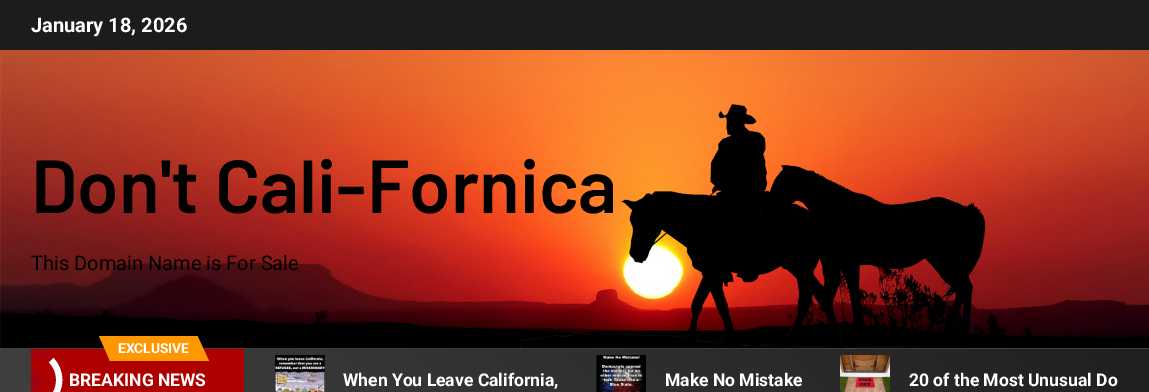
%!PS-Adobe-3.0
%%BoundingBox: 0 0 1149 392
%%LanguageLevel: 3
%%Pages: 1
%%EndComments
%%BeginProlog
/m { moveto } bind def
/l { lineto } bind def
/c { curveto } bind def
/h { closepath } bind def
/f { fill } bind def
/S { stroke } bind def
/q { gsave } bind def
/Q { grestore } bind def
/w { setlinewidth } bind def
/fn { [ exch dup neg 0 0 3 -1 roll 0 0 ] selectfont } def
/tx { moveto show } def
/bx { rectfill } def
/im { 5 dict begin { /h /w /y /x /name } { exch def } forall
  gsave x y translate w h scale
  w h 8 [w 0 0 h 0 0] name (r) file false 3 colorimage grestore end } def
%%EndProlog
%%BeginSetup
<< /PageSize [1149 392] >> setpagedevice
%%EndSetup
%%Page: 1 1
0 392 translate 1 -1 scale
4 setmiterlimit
1 setgray
0 0 1149 392 bx
0.11 setgray
0 0 1149 50 bx
/Roboto-Bold 20 fn
1 setgray
(January 18, 2026) 31 32 tx
(image0.raw) 0 50 1149 299 im
/Barlow-SemiBold 75 fn
0 setgray
(Don't Cali-Fornica) 31 213 tx
/Roboto-Regular 20 fn
(This Domain Name is For Sale) 31 270 tx
q 0 349 m 1149 349 l 1149 392 l 0 392 l h clip newpath
<< /ShadingType 2 /ColorSpace /DeviceRGB /Coords [272 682 878 77] /Extend [true true] /Function << /FunctionType 2 /Domain [0 1] /C0 [0.251 0.251 0.251] /C1 [0.125 0.125 0.125] /N 1 >> >> shfill Q
0.686 0 0 setrgbcolor
31 349 213 43 bx
1 0.596 0 setrgbcolor
110 336 88 25 bx
99 336 m 110 336 l 110 361 l h f
/Roboto-Bold 13.75 fn
1 setgray
(EXCLUSIVE) 118 353 tx
1 0.596 0 setrgbcolor
209 361 m 197.5 361 l 197.5 336 l h f
1 setgray
6.2 w
51 360 m 62 371 62 389 51 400 c S
q
31 349 213 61 rectclip
0.635 0.008 0.059 setrgbcolor
11.5 360 m 22 349.5 40.5 349.5 51 360 c S
Q
0.635 0.008 0.059 setrgbcolor
31 370 m 36.5 370 41 374.5 41 380 c 41 385.5 36.5 390 31 390 c h f
/Roboto-Bold 17.5 fn
1 setgray
(BREAKING NEWS) 69 386 tx
(image1.raw) 275 355 50 37 im
(When You Leave California,) 343 386 tx
(image2.raw) 596 355 50 37 im
(Make No Mistake) 665 386 tx
(image3.raw) 840 355 50 37 im
(20 of the Most Unusual Do) 909 386 tx
showpage
%%EOF
